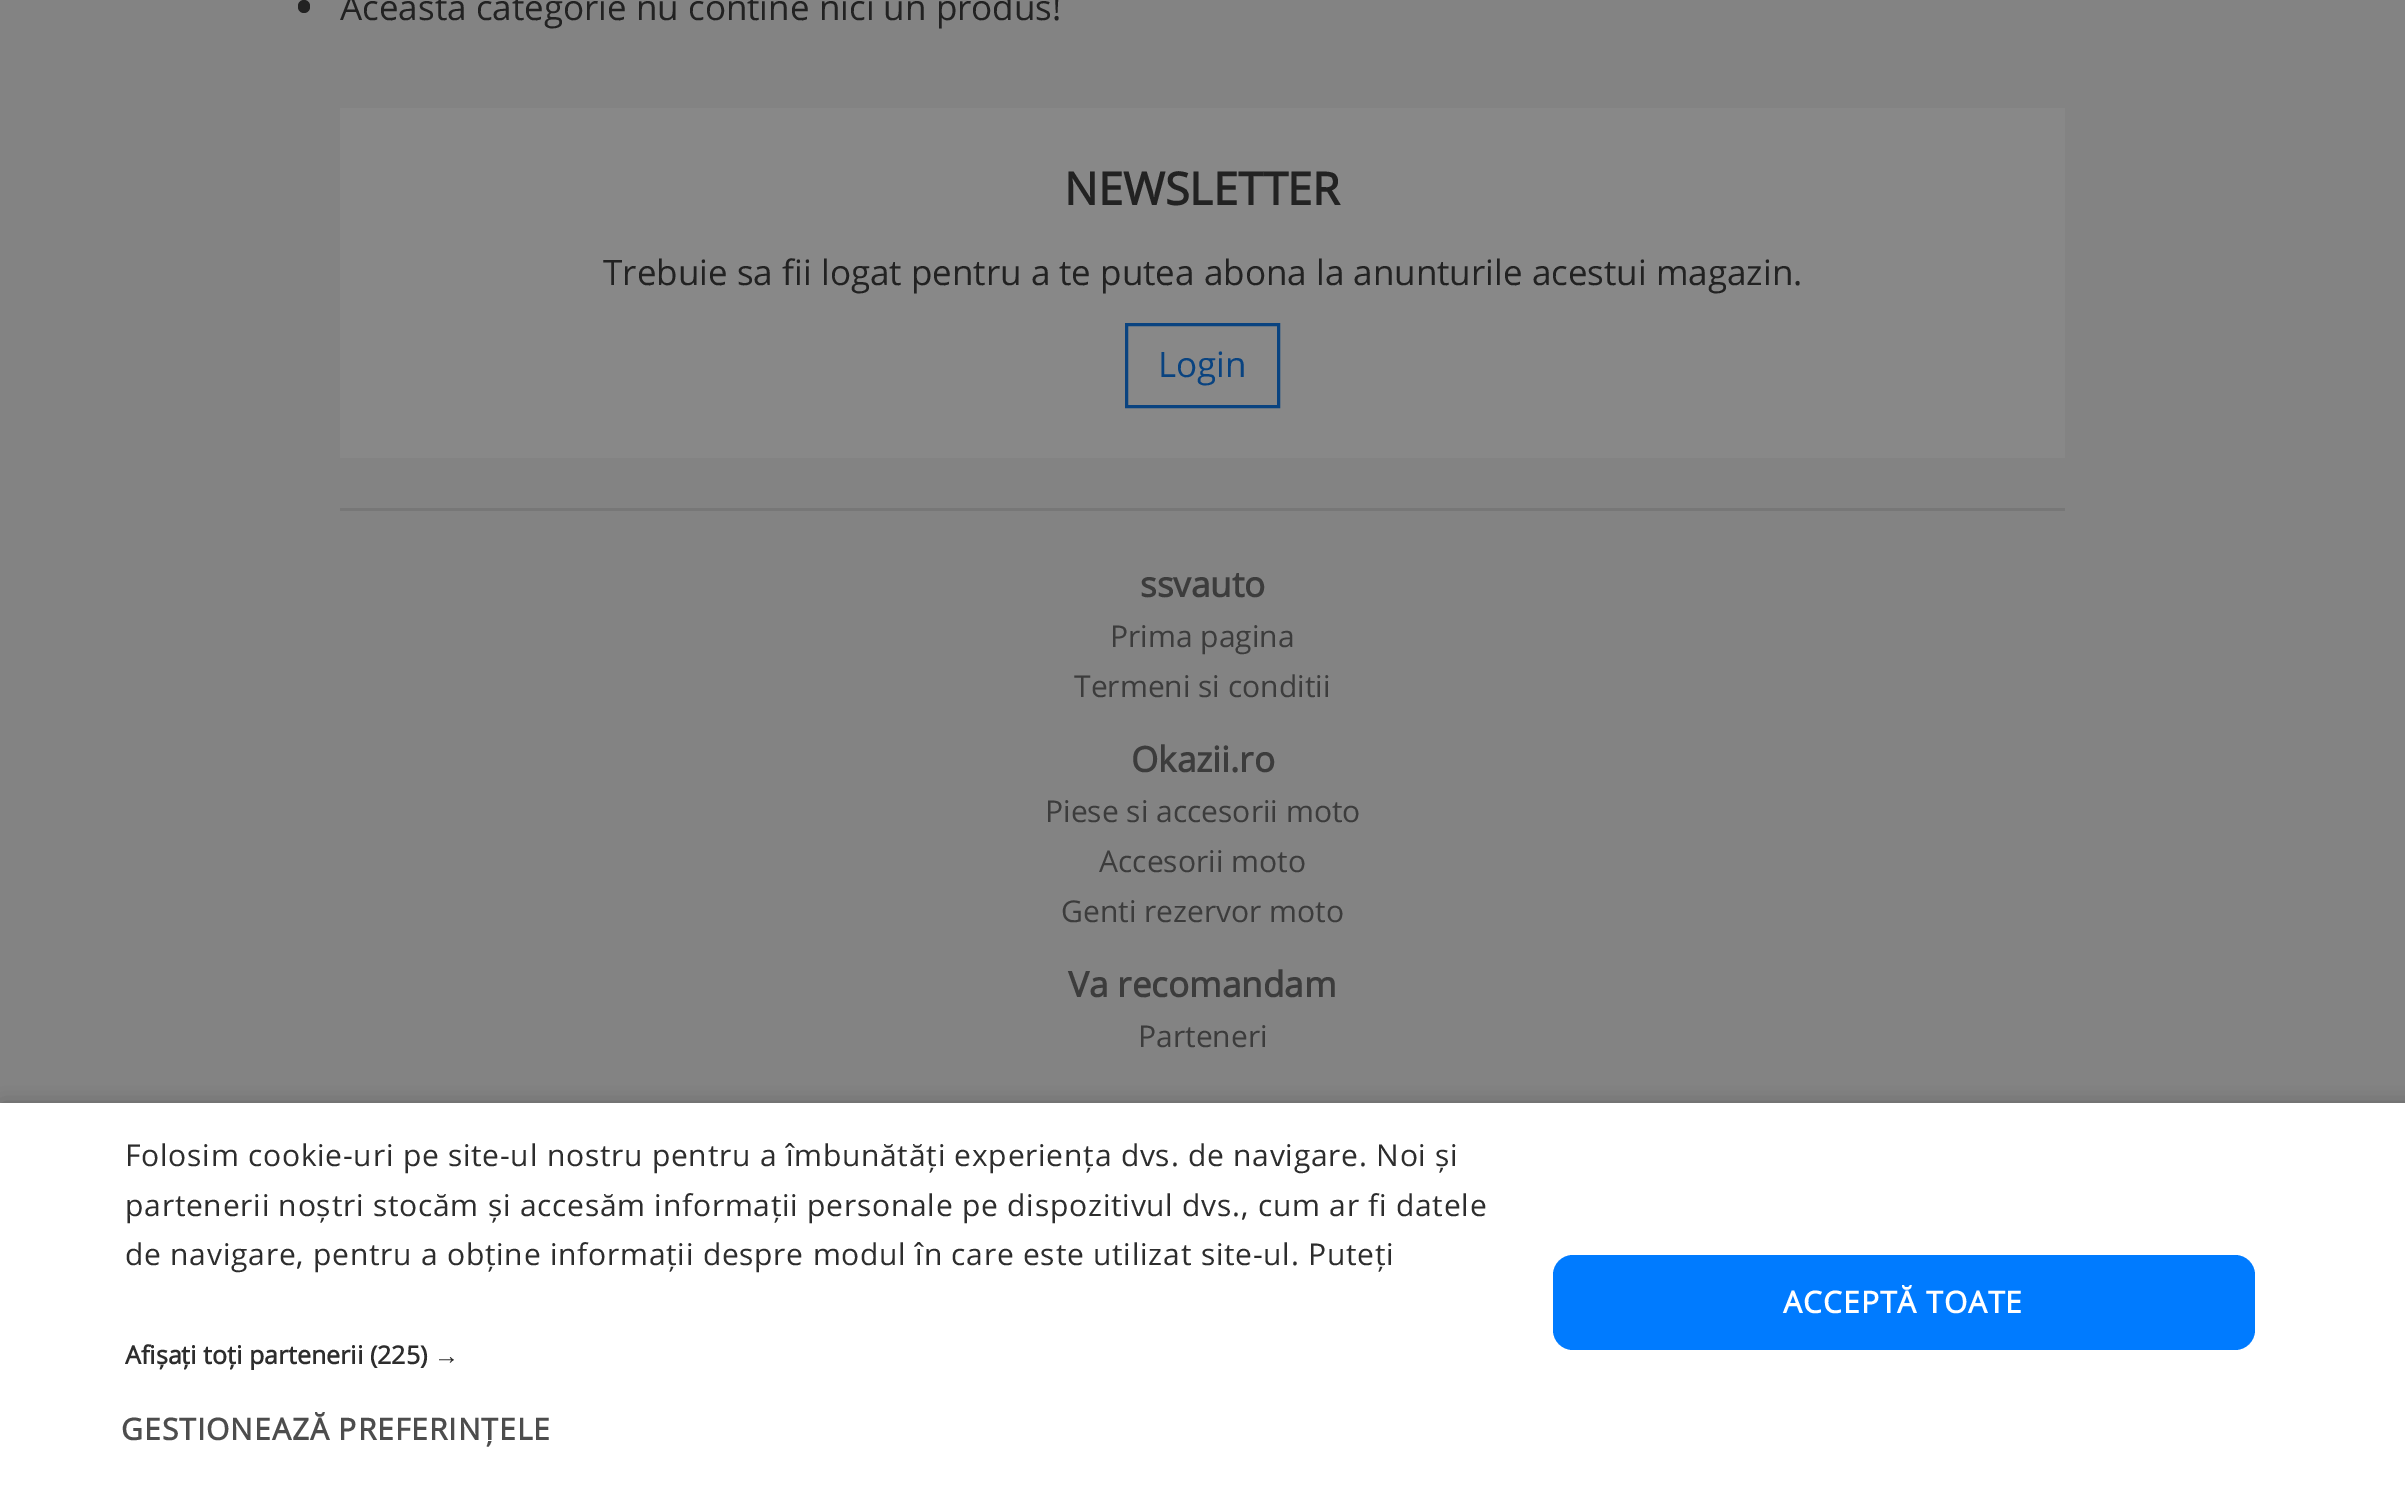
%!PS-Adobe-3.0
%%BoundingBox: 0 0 2405 1503
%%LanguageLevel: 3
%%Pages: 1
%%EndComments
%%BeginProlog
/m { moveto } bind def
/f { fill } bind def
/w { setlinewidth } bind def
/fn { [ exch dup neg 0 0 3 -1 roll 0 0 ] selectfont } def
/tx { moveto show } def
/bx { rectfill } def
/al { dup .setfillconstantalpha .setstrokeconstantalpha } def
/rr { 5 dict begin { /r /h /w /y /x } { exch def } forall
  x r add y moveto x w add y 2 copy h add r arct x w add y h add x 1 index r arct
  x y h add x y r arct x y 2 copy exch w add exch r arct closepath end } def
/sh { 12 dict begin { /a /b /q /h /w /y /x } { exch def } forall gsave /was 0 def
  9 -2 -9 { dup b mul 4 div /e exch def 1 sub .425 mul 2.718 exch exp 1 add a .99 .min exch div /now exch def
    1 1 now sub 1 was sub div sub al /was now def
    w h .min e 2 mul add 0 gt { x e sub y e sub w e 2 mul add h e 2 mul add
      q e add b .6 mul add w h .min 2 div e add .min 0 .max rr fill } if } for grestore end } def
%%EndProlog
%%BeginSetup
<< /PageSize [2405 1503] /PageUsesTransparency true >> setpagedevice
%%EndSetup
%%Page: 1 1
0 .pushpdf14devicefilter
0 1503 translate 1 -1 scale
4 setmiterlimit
0.514 setgray
0 0 2405 1503 bx
0.133 setgray
298 0 12 13 6 rr f
/OpenSans-Regular 35 fn
(Aceasta categorie nu contine nici un produs!) 340 20 tx
0.533 setgray
340 108 1725 350 bx
/OpenSans-Bold 45 fn
0.133 setgray
(NEWSLETTER) 1064 205 tx
/OpenSans-Regular 35 fn
(Trebuie sa fii logat pentru a te putea abona la anunturile acestui magazin.) 603 285 tx
0.035 0.263 0.502 setrgbcolor
3 w
1126.5 324.5 152 82 rectstroke
(Login) 1158 377 tx
0.467 setgray
340 508 1725 3 bx
/OpenSans-Bold 35 fn
0.235 setgray
(ssvauto) 1140 597 tx
/OpenSans-Regular 30 fn
(Prima pagina) 1110 647 tx
(Termeni si conditii) 1074 697 tx
/OpenSans-Bold 35 fn
(Okazii.ro) 1131 772 tx
/OpenSans-Regular 30 fn
(Piese si accesorii moto) 1045 822 tx
(Accesorii moto) 1099 872 tx
(Genti rezervor moto) 1061 922 tx
/OpenSans-Bold 35 fn
(Va recomandam) 1068 997 tx
/OpenSans-Regular 30 fn
(Parteneri) 1138 1047 tx
0 setgray
3 1108 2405 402 0 10 0.35 sh
1 setgray
0 1103 2405 400 bx
0.176 setgray
125 1166 m 0.75 0 (Folosim cookie-uri pe site-ul nostru pentru a îmbunătăți experiența dvs. de navigare. Noi și) ashow
125 1216 m 0.75 0 (partenerii noștri stocăm și accesăm informații personale pe dispozitivul dvs., cum ar fi datele) ashow
125 1265 m 0.75 0 (de navigare, pentru a obține informații despre modul în care este utilizat site-ul. Puteți) ashow
/OpenSans-Bold 25 fn
(Afișați toți partenerii \(225\)) 125 1364 tx
/LiberationSans-Bold 25 fn
(→) 434 1364 tx
/OpenSans-Bold 30 fn
0.302 setgray
121 1440 m 1 0 (GESTIONEAZĂ PREFERINȚELE) ashow
0 0.482 1 setrgbcolor
1553 1255 702 95 20 rr f
1 setgray
1783 1313 m 1 0 (ACCEPTĂ TOATE) ashow
.poppdf14devicefilter showpage
%%EOF
